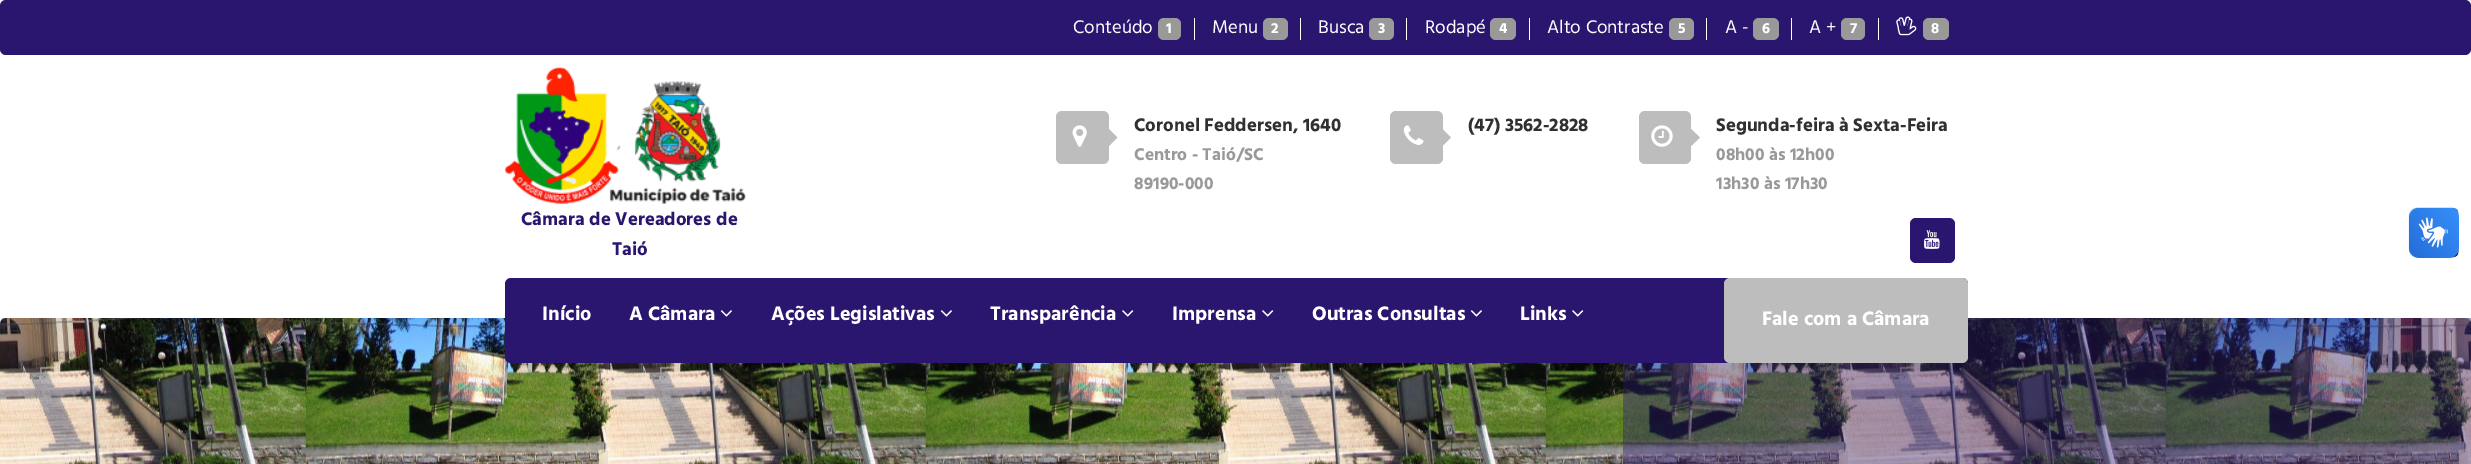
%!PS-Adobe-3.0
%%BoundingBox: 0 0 2471 464
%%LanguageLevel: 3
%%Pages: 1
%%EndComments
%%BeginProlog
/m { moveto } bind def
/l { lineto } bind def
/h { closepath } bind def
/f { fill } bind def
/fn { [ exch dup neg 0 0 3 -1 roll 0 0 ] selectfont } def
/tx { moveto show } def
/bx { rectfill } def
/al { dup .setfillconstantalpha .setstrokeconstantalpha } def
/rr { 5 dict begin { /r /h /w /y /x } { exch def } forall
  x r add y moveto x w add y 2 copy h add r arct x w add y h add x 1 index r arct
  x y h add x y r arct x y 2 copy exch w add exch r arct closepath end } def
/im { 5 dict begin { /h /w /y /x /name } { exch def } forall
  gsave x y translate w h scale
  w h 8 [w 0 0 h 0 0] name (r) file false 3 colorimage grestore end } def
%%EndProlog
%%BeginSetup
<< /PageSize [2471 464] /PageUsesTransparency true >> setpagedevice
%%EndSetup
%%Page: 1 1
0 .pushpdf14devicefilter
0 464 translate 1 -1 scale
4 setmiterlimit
1 setgray
0 0 2471 464 bx
0.165 0.086 0.435 setrgbcolor
0 0 2471 55 6 rr f
1 setgray
1194 18 1 22 bx
/Hind-Regular 18.75 fn
(Conteúdo) 1073 33 tx
0.6 setgray
1158 18 23 22 6 rr f
/Hind-Bold 15 fn
1 setgray
(1) 1166 33 tx
1300 18 1 22 bx
/Hind-Regular 18.75 fn
(Menu) 1212 33 tx
0.6 setgray
1263 18 25 22 6 rr f
/Hind-Bold 15 fn
1 setgray
(2) 1271 33 tx
1406 18 1 22 bx
/Hind-Regular 18.75 fn
(Busca) 1318 33 tx
0.6 setgray
1369 18 25 22 6 rr f
/Hind-Bold 15 fn
1 setgray
(3) 1378 33 tx
1529 18 1 22 bx
/Hind-Regular 18.75 fn
(Rodapé) 1425 33 tx
0.6 setgray
1490 18 26 22 6 rr f
/Hind-Bold 15 fn
1 setgray
(4) 1499 33 tx
1706 18 1 22 bx
/Hind-Regular 18.75 fn
(Alto Contraste) 1547 33 tx
0.6 setgray
1669 18 25 22 6 rr f
/Hind-Bold 15 fn
1 setgray
(5) 1678 33 tx
1791 18 1 22 bx
/Hind-Regular 18.75 fn
(A -) 1725 33 tx
0.6 setgray
1753 18 26 22 6 rr f
/Hind-Bold 15 fn
1 setgray
(6) 1762 33 tx
1878 18 1 22 bx
/Hind-Regular 18.75 fn
(A +) 1809 33 tx
0.6 setgray
1841 18 24 22 6 rr f
/Hind-Bold 15 fn
1 setgray
(7) 1850 33 tx
(image0.raw) 1896 16 21 20 im
0.6 setgray
1923 18 26 22 6 rr f
1 setgray
(8) 1931 33 tx
0.741 setgray
1056 111 53 53 6 rr f
(image1.raw) 1072 125 15 22 im
1109 146 m 1109 129 l 1117.5 137.5 l h f
/Hind-Bold 18.75 fn
0.188 setgray
(Coronel Feddersen, 1640) 1134 131 tx
/Hind-Bold 17.5 fn
0.6 setgray
(Centro - Taió/SC) 1134 160 tx
(89190-000) 1134 189 tx
0.741 setgray
1390 111 53 53 6 rr f
(image2.raw) 1403 125 21 20 im
1442.5 146 m 1442.5 129 l 1451 137.5 l h f
/Hind-Bold 18.75 fn
0.188 setgray
(\(47\) 3562-2828) 1468 131 tx
0.741 setgray
1639 111 52 53 6 rr f
(image3.raw) 1651 125 22 22 im
1691 146 m 1691 129 l 1700 137.5 l h f
0.188 setgray
(Segunda-feira à Sexta-Feira) 1716 131 tx
/Hind-Bold 17.5 fn
0.6 setgray
(08h00 às 12h00) 1716 160 tx
(13h30 às 17h30) 1716 189 tx
0.165 0.086 0.435 setrgbcolor
1910 218 45 45 6 rr f
(image4.raw) 1924 230 16 19 im
(image5.raw) 505 67 241 137 im
/Hind-Bold 18.75 fn
(Câmara de Vereadores de) 521 225 tx
(Taió) 612 255 tx
(image8.raw) 0 318 2471 146 im
0.4 al
1623 318 848 146 bx
1 al
505 278 1463 85 6 rr f
/Hind-Bold 20 fn
1 setgray
(Início) 542 320 tx
(A Câmara) 629 320 tx
(image6.raw) 720 310 12 7 im
(Ações Legislativas) 771 320 tx
(image6.raw) 940 310 12 7 im
(Transparência) 990 320 tx
(image7.raw) 1122 310 12 7 im
(Imprensa) 1172 320 tx
(image7.raw) 1262 310 12 7 im
(Outras Consultas) 1312 320 tx
(image6.raw) 1470 310 12 7 im
(Links) 1520 320 tx
(image7.raw) 1572 310 12 7 im
0.741 setgray
1724 278 244 85 6 rr f
1 setgray
(Fale com a Câmara) 1762 325 tx
(image9.raw) 2408 207 51 51 im
(image10.raw) 2409 208 50 50 im
.poppdf14devicefilter showpage
%%EOF
